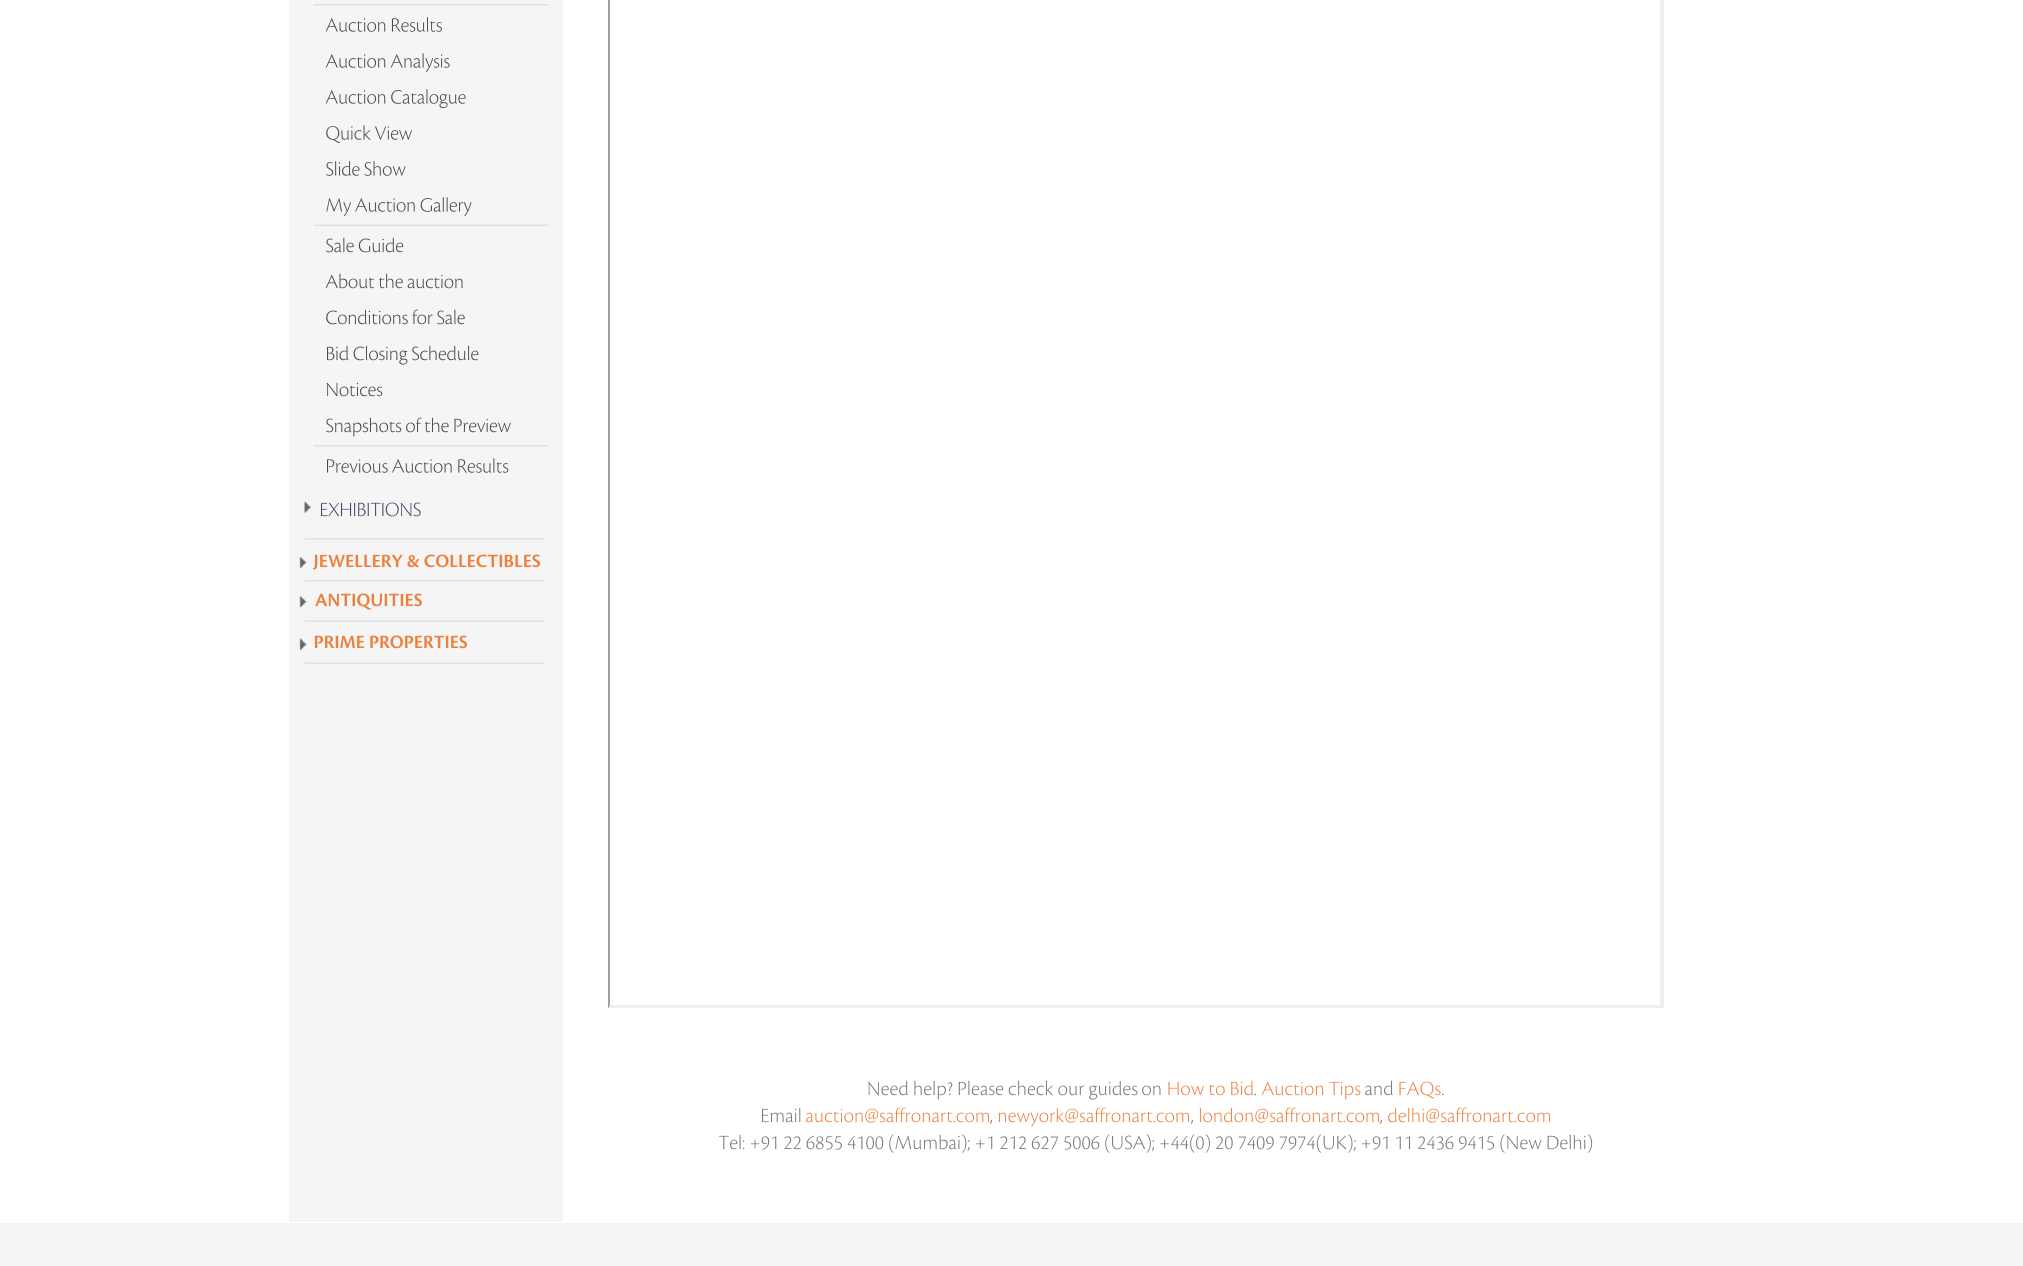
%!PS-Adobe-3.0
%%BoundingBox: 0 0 2023 1266
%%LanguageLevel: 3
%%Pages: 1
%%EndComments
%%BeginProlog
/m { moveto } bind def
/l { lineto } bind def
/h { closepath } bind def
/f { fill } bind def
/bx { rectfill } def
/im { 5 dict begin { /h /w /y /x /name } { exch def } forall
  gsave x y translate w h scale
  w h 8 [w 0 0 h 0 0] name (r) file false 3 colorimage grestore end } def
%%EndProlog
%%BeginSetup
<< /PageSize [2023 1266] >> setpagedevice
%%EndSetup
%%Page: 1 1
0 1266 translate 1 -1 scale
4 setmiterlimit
1 setgray
0 0 2023 1266 bx
0.961 setgray
289 0 274 1222 bx
(image0.raw) 313 4 236 2 im
(image1.raw) 325 17 117 15 im
(image2.raw) 325 53 125 20 im
(image3.raw) 325 89 141 20 im
(image4.raw) 326 125 86 18 im
(image5.raw) 326 161 80 15 im
(image6.raw) 326 197 146 20 im
(image7.raw) 313 224 236 2 im
(image8.raw) 326 237 78 16 im
(image9.raw) 325 273 138 16 im
(image10.raw) 326 309 139 16 im
(image11.raw) 326 345 153 20 im
(image12.raw) 326 382 57 15 im
(image13.raw) 326 417 185 20 im
(image0.raw) 313 445 236 2 im
(image14.raw) 326 458 183 15 im
(image15.raw) 304 501 7 12 im
(image16.raw) 321 502 100 15 im
(image17.raw) 304 538 241 2 im
(image18.raw) 299 557 8 11 im
(image19.raw) 312 554 229 16 im
(image17.raw) 304 580 241 2 im
(image20.raw) 299 596 8 12 im
(image21.raw) 315 593 107 17 im
(image22.raw) 304 620 241 2 im
(image23.raw) 299 638 8 13 im
(image24.raw) 314 635 154 14 im
(image22.raw) 304 662 241 2 im
0.933 setgray
1664 -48 m 1664 1008 l 1660 1005 l 1660 -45 l h f
1664 1008 m 608 1008 l 610 1005 l 1660 1005 l h f
0.624 setgray
608 1008 m 608 -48 l 610 -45 l 610 1005 l h f
(image25.raw) 868 1080 270 20 im
(image26.raw) 1142 1085 19 11 im
(image27.raw) 1168 1080 86 16 im
(image28.raw) 1254 1093 2 3 im
(image29.raw) 1261 1081 100 19 im
(image30.raw) 1365 1080 28 16 im
(image31.raw) 1399 1081 42 18 im
(image32.raw) 1442 1093 2 3 im
(image33.raw) 762 1107 39 16 im
(image34.raw) 806 1107 184 16 im
(image35.raw) 989 1120 3 4 im
(image36.raw) 998 1107 192 20 im
(image37.raw) 1190 1120 3 4 im
(image38.raw) 1199 1107 181 16 im
(image39.raw) 1379 1120 3 4 im
(image40.raw) 1388 1107 163 16 im
(image41.raw) 718 1134 638 19 im
(image42.raw) 1361 1134 232 19 im
0.957 setgray
0 1223 2023 43 bx
showpage
%%EOF
